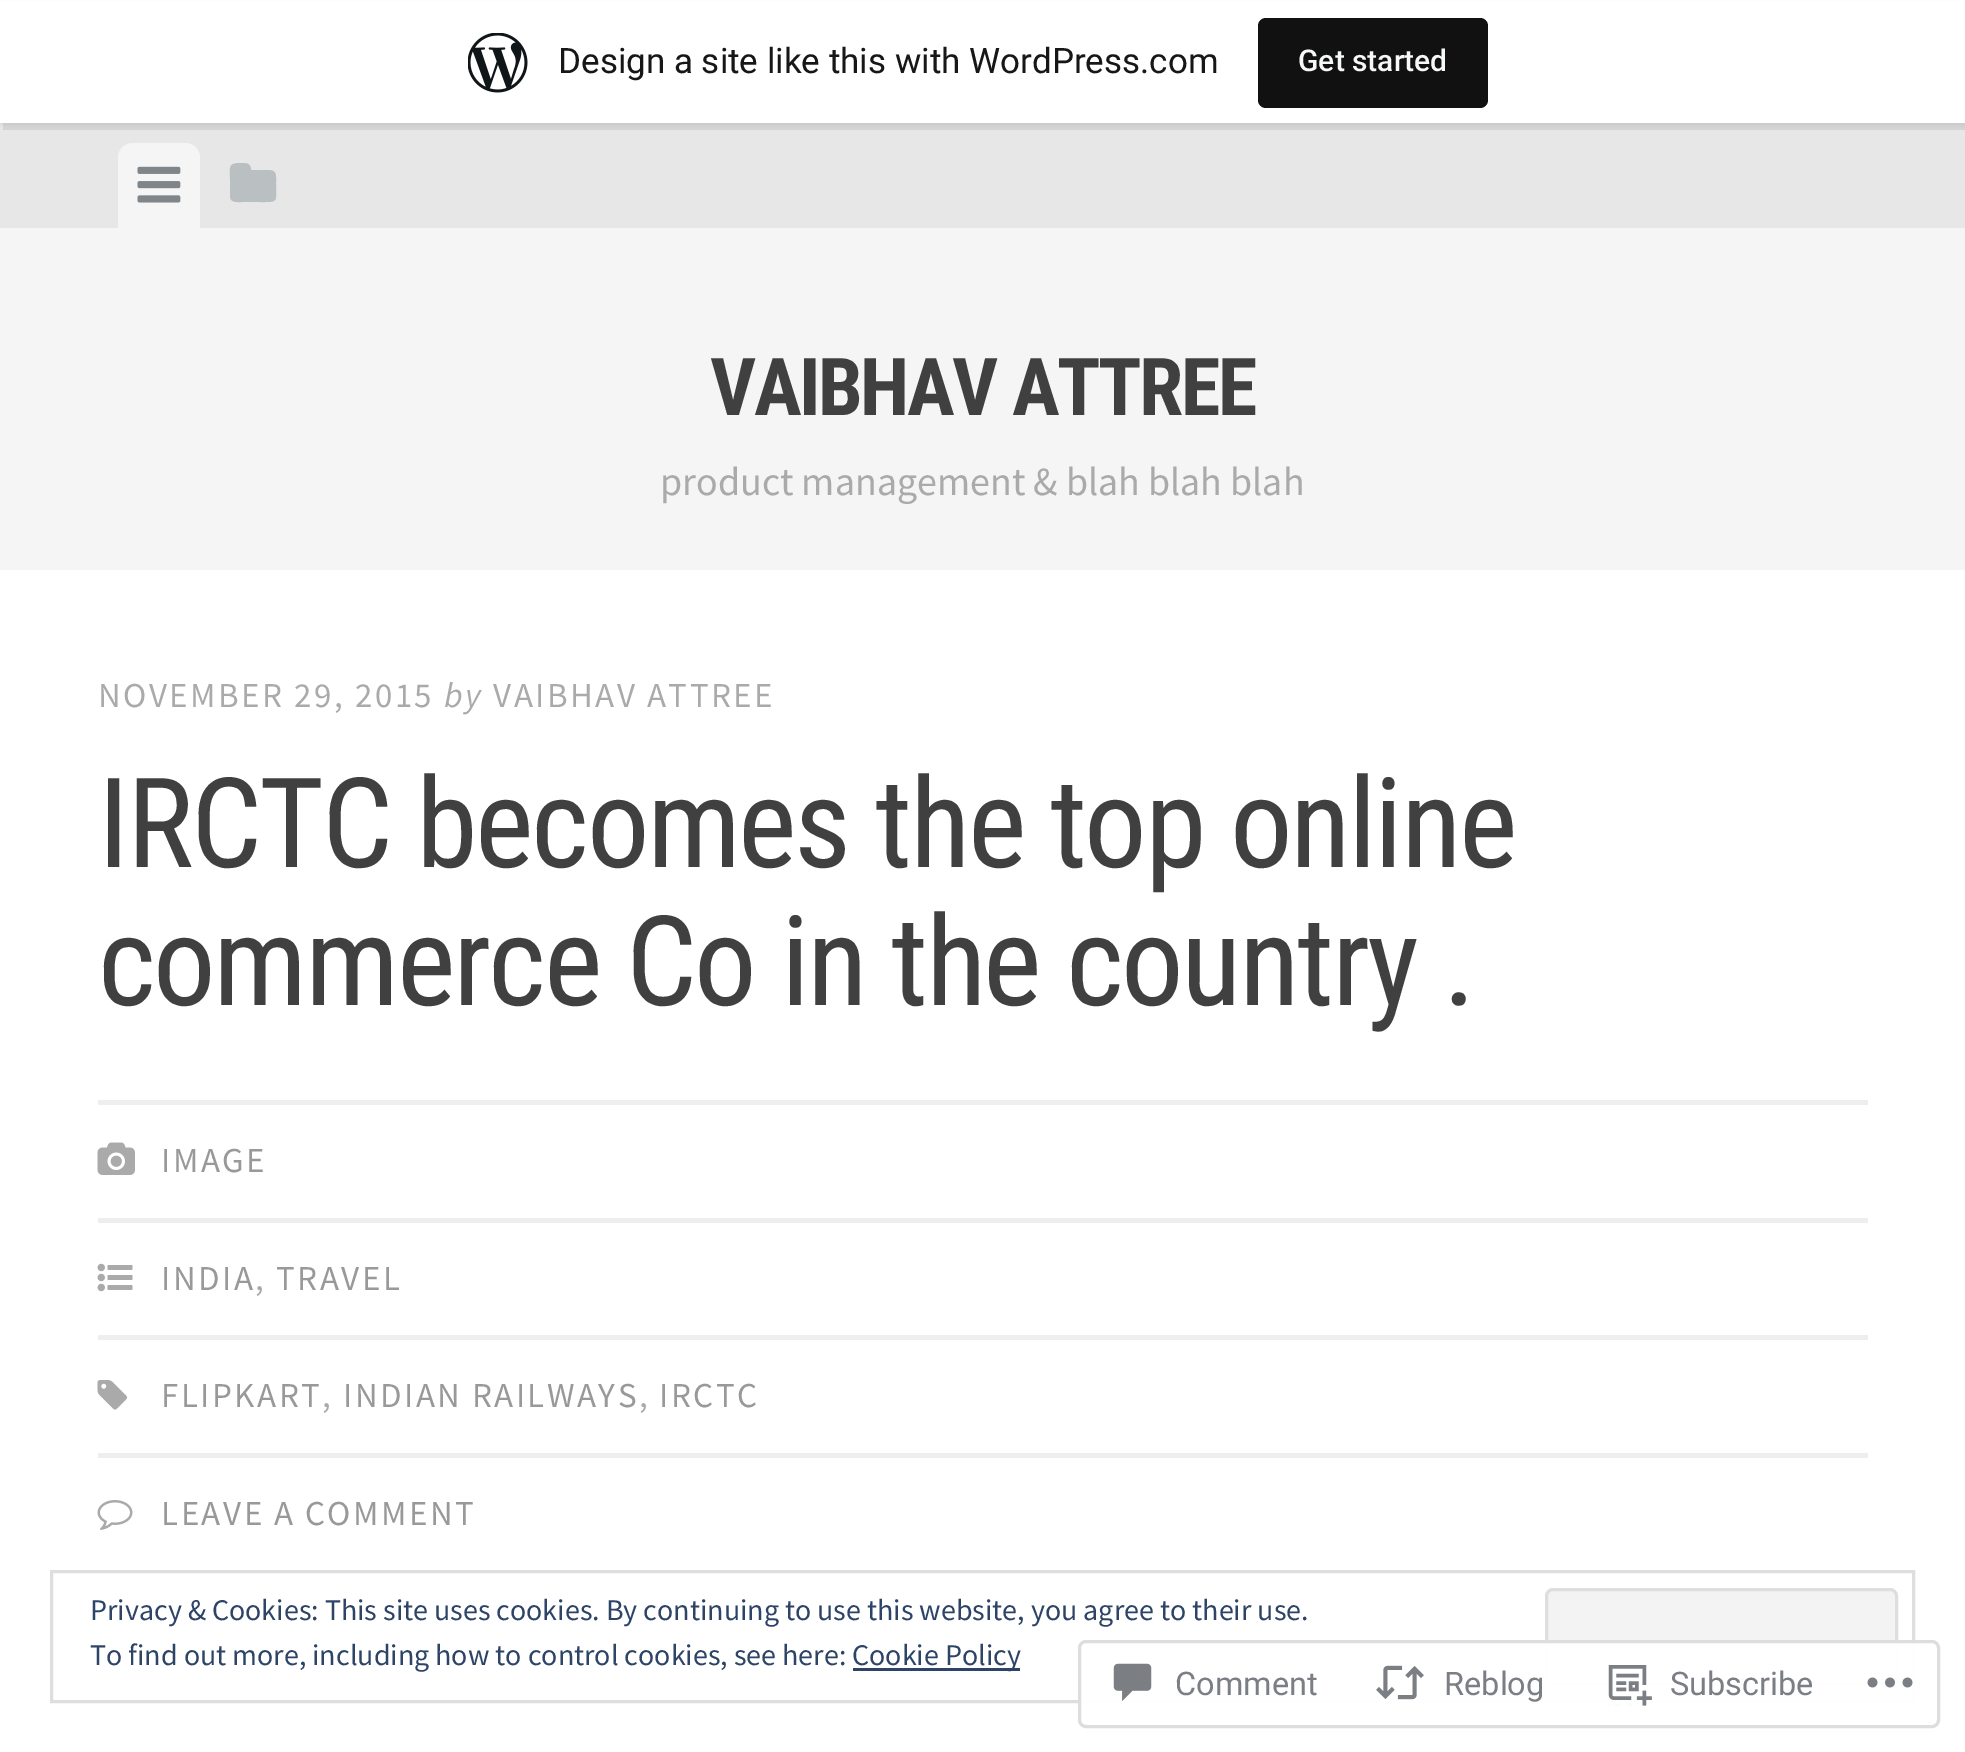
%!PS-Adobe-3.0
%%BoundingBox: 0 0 1965 1752
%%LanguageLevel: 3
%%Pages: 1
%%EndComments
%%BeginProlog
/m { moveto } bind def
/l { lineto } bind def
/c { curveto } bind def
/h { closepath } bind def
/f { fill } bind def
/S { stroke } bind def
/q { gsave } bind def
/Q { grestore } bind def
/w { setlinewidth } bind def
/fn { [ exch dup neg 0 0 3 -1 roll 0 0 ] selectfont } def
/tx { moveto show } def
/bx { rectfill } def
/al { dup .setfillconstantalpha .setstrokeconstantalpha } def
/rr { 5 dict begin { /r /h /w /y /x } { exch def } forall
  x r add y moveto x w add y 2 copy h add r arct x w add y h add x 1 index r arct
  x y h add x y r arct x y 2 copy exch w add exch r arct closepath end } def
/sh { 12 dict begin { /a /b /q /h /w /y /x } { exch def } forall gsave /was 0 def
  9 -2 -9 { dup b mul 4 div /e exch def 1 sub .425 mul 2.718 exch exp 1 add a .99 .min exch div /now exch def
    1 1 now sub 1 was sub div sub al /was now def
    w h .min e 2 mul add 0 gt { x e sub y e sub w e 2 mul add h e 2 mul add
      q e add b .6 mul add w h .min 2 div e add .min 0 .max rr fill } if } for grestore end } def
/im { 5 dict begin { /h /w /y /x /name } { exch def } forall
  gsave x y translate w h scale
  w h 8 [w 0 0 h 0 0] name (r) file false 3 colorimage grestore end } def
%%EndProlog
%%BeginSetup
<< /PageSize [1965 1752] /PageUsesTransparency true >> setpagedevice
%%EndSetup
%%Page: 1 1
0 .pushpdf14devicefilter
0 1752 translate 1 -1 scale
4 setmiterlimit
1 setgray
0 0 1965 1752 bx
0.906 setgray
0 123 1965 105 bx
0 setgray
0 3 1965 122 0 2.5 0.05 sh
0.08 al
3 122 m 3 130 l 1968 130 l 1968 8 l 1965 8 l 1965 122 l h f
1 al
1 setgray
0 1 1965 122 bx
(image0.raw) 468 33 60 60 im
/Roboto-Regular 35 fn
0.09 setgray
(Design a site like this with WordPress.com) 558 73 tx
0.067 setgray
1258 18 230 90 8 rr f
/Roboto-Medium 30 fn
0.965 0.969 0.969 setrgbcolor
(Get started) 1298 71 tx
0.961 setgray
0 228 1965 342 bx
133 143 m 185 143 l 193.5 143 200 149.5 200 158 c 200 228 l 118 228 l 118 158 l 118 149.5 124.5 143 133 143 c h f
(image1.raw) 137 166 44 37 im
0.729 0.749 0.761 setrgbcolor
230 196 m 230 178 l 230 167 228 163 241 163 c 246 163 251 163 251 170 c 267 170 l 277 170 276 174 276 183 c 276 203 279 202 259 202 c 242 202 l 237 202 230 203 230 196 c h f
/RobotoCondensed-Bold 80 fn
0.251 setgray
710 415 m -2.5 0 (VAIBHAV ATTREE) ashow
/SourceSansPro-Regular 40 fn
0.667 setgray
(product management & blah blah blah) 660 495 tx
/SourceSansPro-Regular 35 fn
98 707 m 2.5 0 (NOVEMBER 29, 2015) ashow
/SourceSansPro-Italic 35 fn
444 707 m 2.5 0 (by) ashow
/SourceSansPro-Regular 35 fn
493 707 m 2.5 0 (VAIBHAV ATTREE) ashow
/RobotoCondensed-Regular 125 fn
0.251 setgray
98 867 m -2.5 0 (IRCTC becomes the top online) ashow
98 1005 m -2.5 0 (commerce Co in the country .) ashow
0.933 setgray
98 1100 1770 5 bx
98 1218 1770 5 bx
(image2.raw) 97 1142 38 33 im
/SourceSansPro-Regular 35 fn
0.6 setgray
161 1172 m 2.5 0 (IMAGE) ashow
0.933 setgray
98 1335 1770 5 bx
(image3.raw) 97 1263 36 29 im
0.6 setgray
161 1290 m 2.5 0 (INDIA) ashow
276 1290 m 2.5 0 (TRAVEL) ashow
0.667 setgray
255 1290 m 2.5 0 (,) ashow
0.933 setgray
98 1453 1770 5 bx
(image4.raw) 97 1380 30 30 im
0.6 setgray
161 1407 m 2.5 0 (FLIPKART) ashow
343 1407 m 2.5 0 (INDIAN RAILWAYS) ashow
659 1407 m 2.5 0 (IRCTC) ashow
0.667 setgray
322 1407 m 2.5 0 (,) ashow
639 1407 m 2.5 0 (,) ashow
(image5.raw) 97 1500 36 30 im
0.6 setgray
161 1525 m 2.5 0 (LEAVE A COMMENT) ashow
0.871 setgray
3 w
51.5 1571.5 1862 130 rectstroke
/SourceSansPro-Regular 30 fn
0.18 0.267 0.404 setrgbcolor
(Privacy & Cookies: This site uses cookies. By continuing to use this website, you agree to their use.) 90 1620 tx
0.953 setgray
1546.5 1589.5 350 94 6.5 rr q f Q
0.871 setgray
S
0.18 0.267 0.404 setrgbcolor
(To find out more, including how to control cookies, see here:) 90 1665 tx
853 1668 167 3 bx
(Cookie Policy) 852 1665 tx
0.98 al
1 setgray
1078 1640 862 88 8 rr f
0.863 0.863 0.871 setrgbcolor
1079.5 1641.5 859 85 6.5 rr S
1 al
(image6.raw) 1113 1663 39 39 im
/Roboto-Regular 32.5 fn
0.482 0.498 0.522 setrgbcolor
(Comment) 1175 1695 tx
(image7.raw) 1376 1665 48 35 im
(Reblog) 1444 1695 tx
(image8.raw) 1608 1665 44 41 im
(Subscribe) 1670 1695 tx
(image9.raw) 1867 1677 46 11 im
.poppdf14devicefilter showpage
%%EOF
